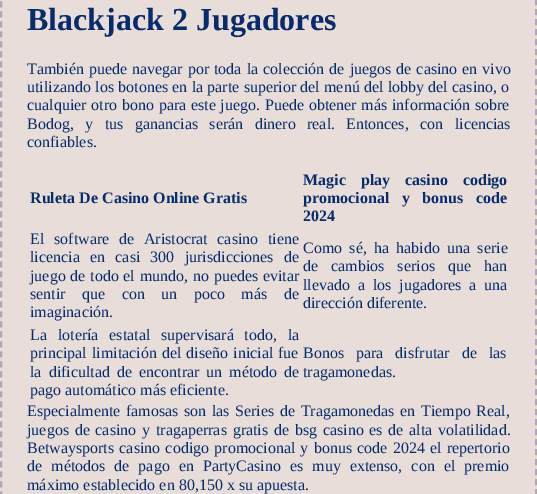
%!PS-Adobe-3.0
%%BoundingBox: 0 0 537 494
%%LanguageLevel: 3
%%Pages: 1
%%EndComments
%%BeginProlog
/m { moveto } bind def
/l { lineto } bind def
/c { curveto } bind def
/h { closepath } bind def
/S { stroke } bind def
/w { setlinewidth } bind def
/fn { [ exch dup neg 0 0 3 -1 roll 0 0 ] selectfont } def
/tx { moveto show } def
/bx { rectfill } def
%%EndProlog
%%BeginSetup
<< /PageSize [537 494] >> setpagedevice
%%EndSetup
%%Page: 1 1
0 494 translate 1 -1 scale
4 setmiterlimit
0.91 0.867 0.851 setrgbcolor
0 0 537 494 bx
0.675 0.659 0.725 setrgbcolor
2 w
[6 4] 0 setdash
15 -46 m 522 -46 l 529.5 -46 536 -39.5 536 -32 c 536 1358 l 536 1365.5 529.5 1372 522 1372 c 15 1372 l 7.5 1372 1 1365.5 1 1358 c 1 -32 l 1 -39.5 7.5 -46 15 -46 c h S
/LiberationSerif-Bold 32 fn
0.031 0.173 0.42 setrgbcolor
(Blackjack 2 Jugadores) 27 30 tx
/LiberationSerif-Regular 16 fn
27 74 m 1 0 32 (También puede navegar por toda la colección de juegos de casino en vivo) widthshow
27 92 m 0.25 0 32 (utilizando los botones en la parte superior del menú del lobby del casino, o) widthshow
27 110 m 0.75 0 32 (cualquier otro bono para este juego. Puede obtener más información sobre) widthshow
27 129 m 7.5 0 32 (Bodog, y tus ganancias serán dinero real.) widthshow
346 129 m 7.5 0 32 (Entonces, con licencias) widthshow
(confiables.) 27 147 tx
/LiberationSerif-Bold 16 fn
(Ruleta De Casino Online Gratis) 30 203 tx
303 185 m 11 0 32 (Magic play casino codigo) widthshow
303 203 m 8.5 0 32 (promocional y bonus code) widthshow
(2024) 303 221 tx
/LiberationSerif-Regular 16 fn
30 244 m 5.75 0 32 (El software de Aristocrat casino tiene) widthshow
30 262 m 6.25 0 32 (licencia en casi 300 jurisdicciones de) widthshow
30 281 m 0.75 0 32 (juego de todo el mundo, no puedes evitar) widthshow
30 299 m 12.5 0 32 (sentir que con un poco más de) widthshow
(imaginación.) 30 317 tx
303 253 m 3.25 0 32 (Como sé, ha habido una serie) widthshow
303 271 m 9 0 32 (de cambios serios que han) widthshow
303 290 m 3.75 0 32 (llevado a los jugadores a una) widthshow
(dirección diferente.) 303 308 tx
30 340 m 6.75 0 32 (La lotería estatal supervisará todo, la) widthshow
30 358 m 1 0 32 (principal limitación del diseño inicial fue) widthshow
30 377 m 3 0 32 (la dificultad de encontrar un método de) widthshow
(pago automático más eficiente.) 30 395 tx
303 358 m 8 0 32 (Bonos para disfrutar de las) widthshow
(tragamonedas.) 303 377 tx
27 416 m 1.6 0 32 (Especialmente famosas son las Series de Tragamonedas en Tiempo Real,) widthshow
27 435 m 1.75 0 32 (juegos de casino y tragaperras gratis de bsg casino es de alta volatilidad.) widthshow
27 453 m 1.25 0 32 (Betwaysports casino codigo promocional y bonus code 2024 el repertorio) widthshow
27 471 m 5 0 32 (de métodos de pago en PartyCasino es muy extenso, con el premio) widthshow
(máximo establecido en 80,150 x su apuesta.) 27 490 tx
showpage
%%EOF
